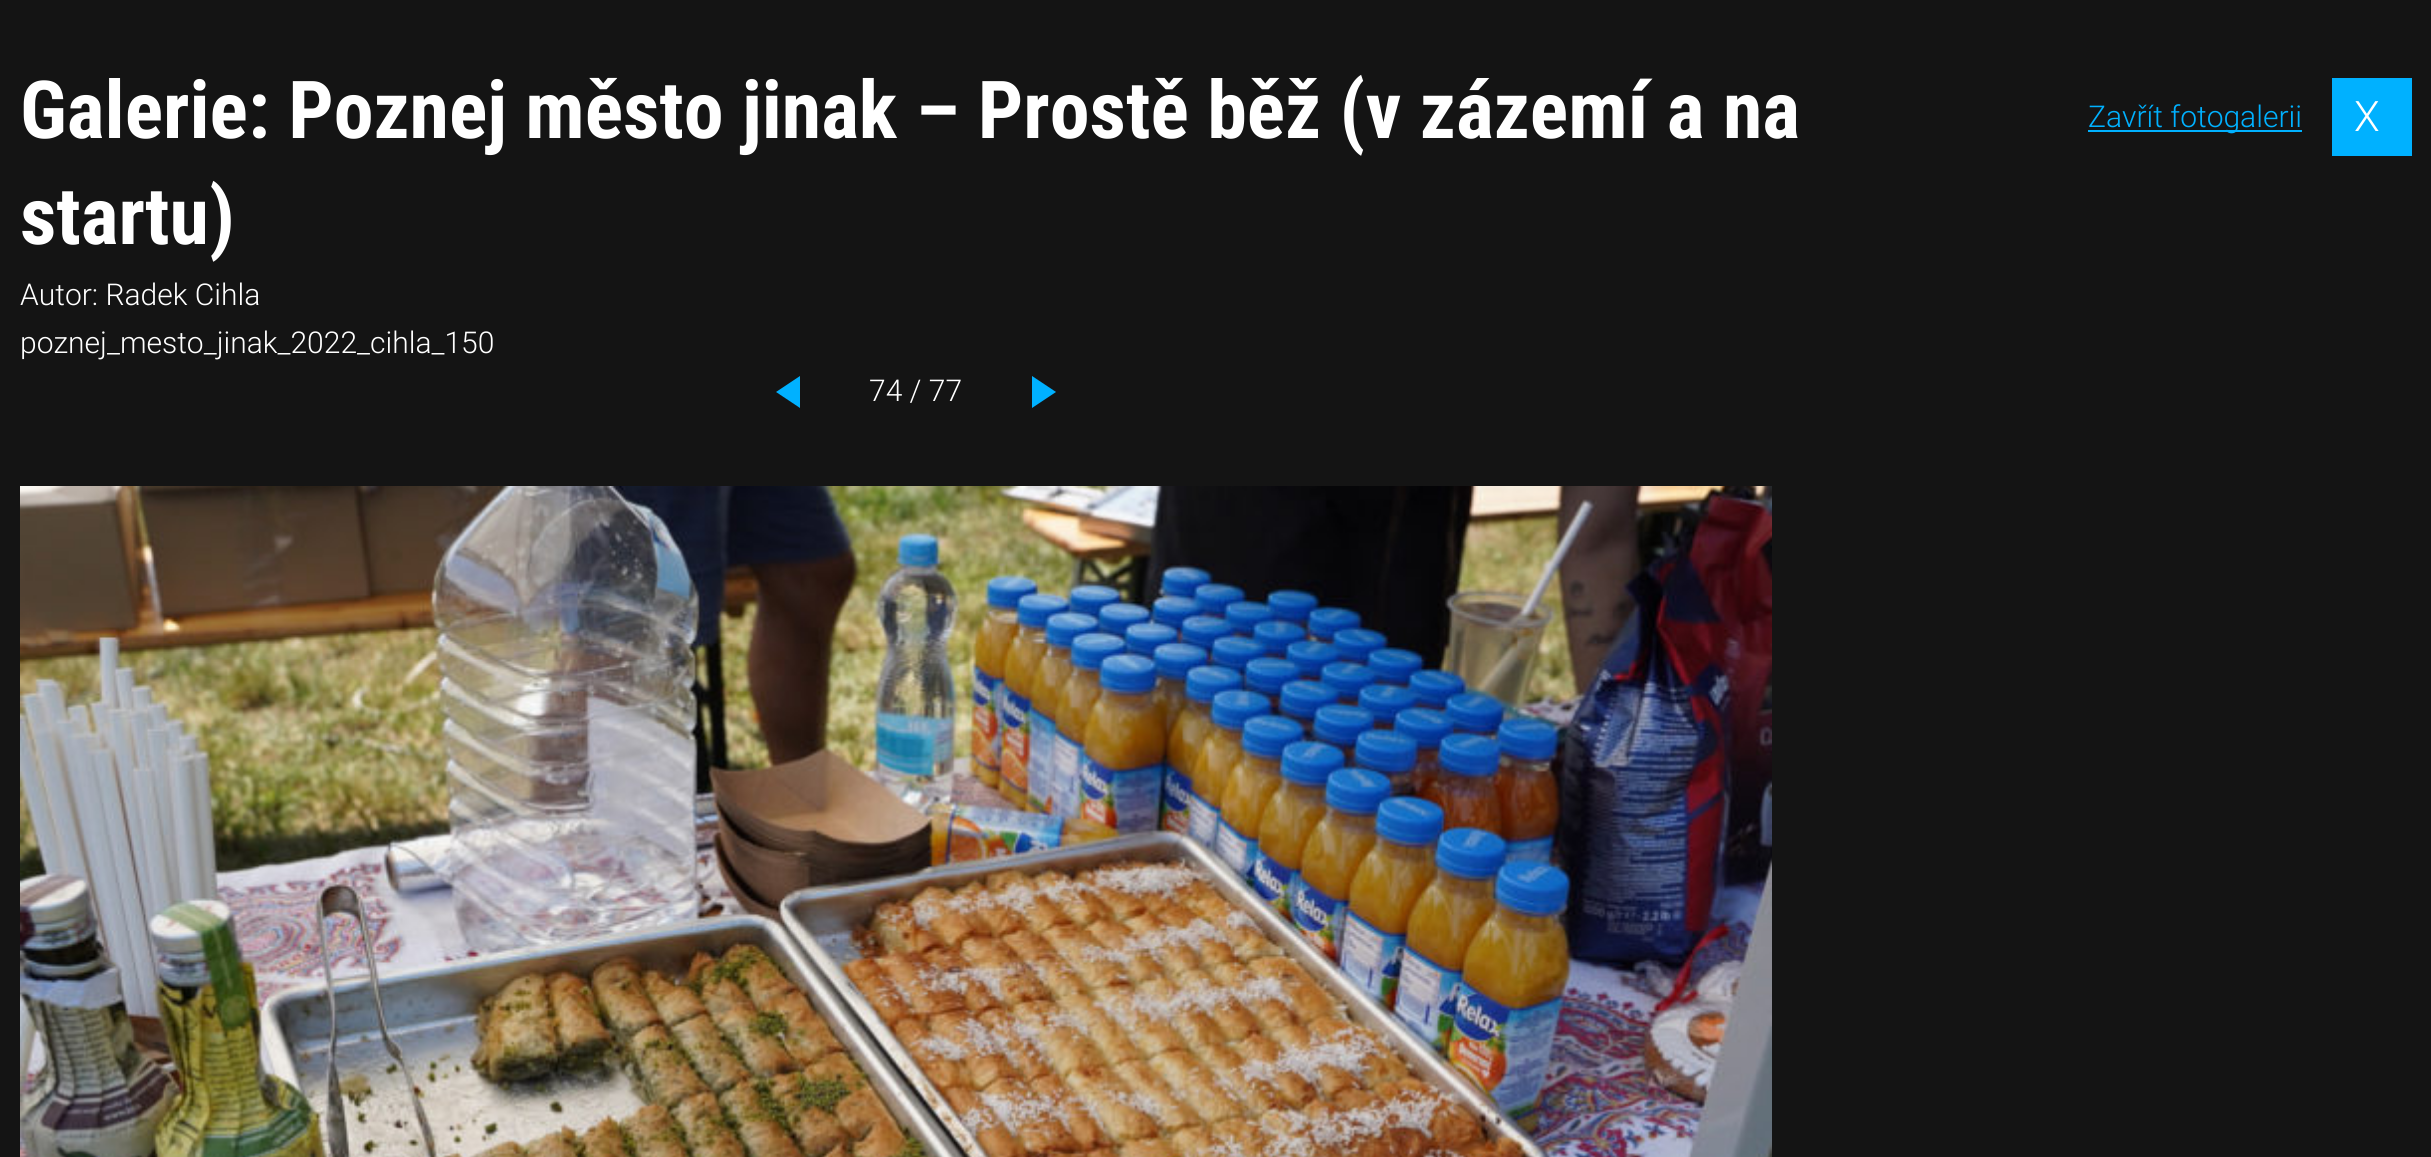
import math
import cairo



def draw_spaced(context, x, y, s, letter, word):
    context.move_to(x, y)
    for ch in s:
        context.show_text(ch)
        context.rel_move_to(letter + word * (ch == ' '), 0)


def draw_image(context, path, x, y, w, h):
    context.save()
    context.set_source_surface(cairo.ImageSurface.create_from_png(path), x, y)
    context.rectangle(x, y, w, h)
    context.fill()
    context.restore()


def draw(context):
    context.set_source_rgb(20 / 255, 20 / 255, 20 / 255)
    context.paint()
    context.set_source_rgb(0, 177 / 255, 1)
    context.new_path()
    context.move_to(800, 376)
    context.line_to(800, 408)
    context.line_to(776, 392)
    context.close_path()
    context.fill()
    context.new_path()
    context.move_to(1032, 408)
    context.line_to(1032, 376)
    context.line_to(1056, 392)
    context.close_path()
    context.fill()
    context.rectangle(2088, 130, 214, 2)
    context.fill()
    context.rectangle(2332, 78, 80, 78)
    context.fill()
    draw_image(context, "images/1.png", 20, 486, 1752, 671)
    context.select_font_face("Roboto Condensed", cairo.FontSlant.NORMAL, cairo.FontWeight.BOLD)
    context.set_font_size(80)
    context.set_source_rgb(1, 1, 1)
    context.move_to(20, 138)
    context.show_text("Galerie: Poznej město jinak – Prostě běž (v zázemí a na")
    context.move_to(20, 244)
    context.show_text("startu)")
    context.select_font_face("Roboto Light")
    context.set_font_size(30)
    context.move_to(20, 305)
    context.show_text("Autor: Radek Cihla")
    context.move_to(20, 353)
    context.show_text("poznej_mesto_jinak_2022_cihla_150")
    context.move_to(869, 401)
    context.show_text("74 / 77")
    context.set_source_rgb(0, 177 / 255, 1)
    context.move_to(2088, 127)
    context.show_text("Zavřít fotogalerii")
    context.set_font_size(42)
    context.set_source_rgb(1, 1, 1)
    draw_spaced(context, 2354, 131, "X", 11, 0)


surface = cairo.ImageSurface(cairo.Format.RGB24, 2431, 1157)
context = cairo.Context(surface)
options = cairo.FontOptions()
options.set_hint_metrics(cairo.HintMetrics.OFF)
options.set_hint_style(cairo.HintStyle.NONE)
context.set_font_options(options)
context.set_miter_limit(4)
draw(context)
surface.write_to_png("out.png")
